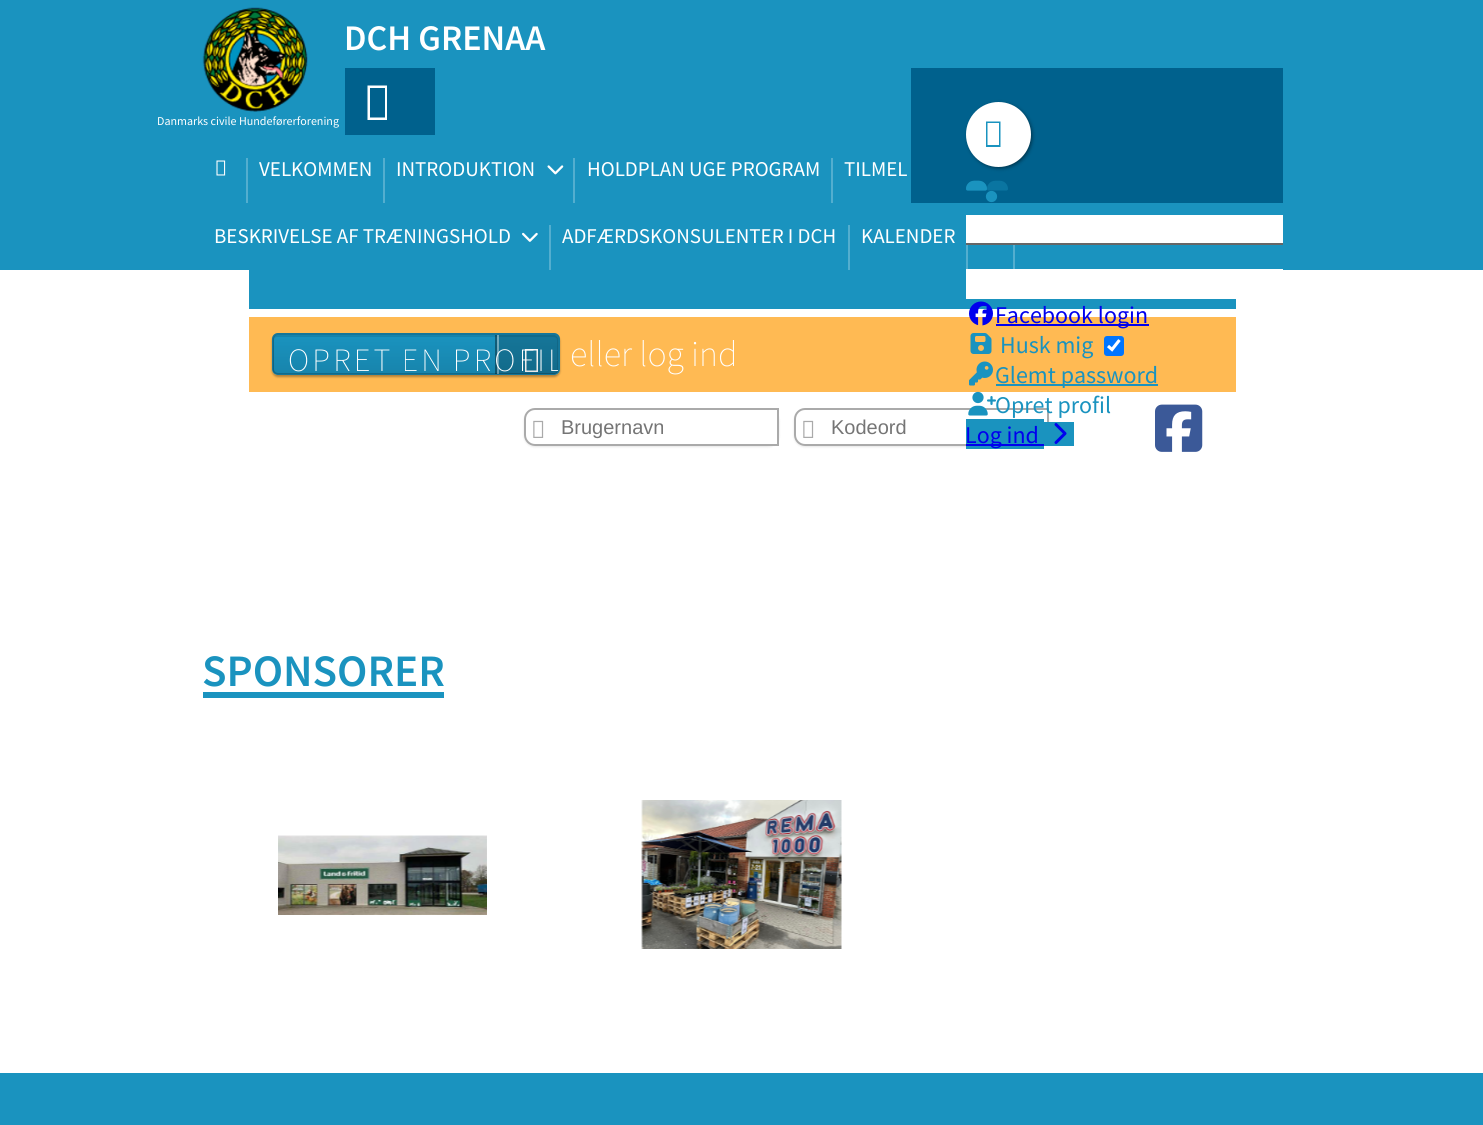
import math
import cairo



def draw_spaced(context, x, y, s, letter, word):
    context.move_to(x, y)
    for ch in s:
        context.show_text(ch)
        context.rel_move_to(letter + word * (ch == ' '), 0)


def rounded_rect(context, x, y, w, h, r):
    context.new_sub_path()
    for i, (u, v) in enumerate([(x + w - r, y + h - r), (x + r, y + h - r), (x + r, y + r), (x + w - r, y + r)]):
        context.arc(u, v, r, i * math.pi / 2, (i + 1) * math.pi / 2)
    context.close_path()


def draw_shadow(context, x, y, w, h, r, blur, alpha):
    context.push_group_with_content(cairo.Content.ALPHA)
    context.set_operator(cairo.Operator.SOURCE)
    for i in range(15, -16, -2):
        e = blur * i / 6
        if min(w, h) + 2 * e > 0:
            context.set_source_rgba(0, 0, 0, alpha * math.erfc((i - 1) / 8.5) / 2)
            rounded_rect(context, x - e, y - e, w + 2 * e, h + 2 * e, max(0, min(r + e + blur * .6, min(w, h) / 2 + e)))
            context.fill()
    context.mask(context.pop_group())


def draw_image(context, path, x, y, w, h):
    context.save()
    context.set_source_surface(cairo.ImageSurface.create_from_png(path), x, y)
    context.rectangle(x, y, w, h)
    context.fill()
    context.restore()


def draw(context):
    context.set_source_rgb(1, 1, 1)
    context.paint()
    context.set_source_rgb(26 / 255, 147 / 255, 191 / 255)
    context.rectangle(0, 0, 1483, 270)
    context.fill()
    draw_image(context, "images/1.png", 202, 7, 106, 105)
    context.set_source_rgb(0, 97 / 255, 141 / 255)
    context.rectangle(345, 68, 90, 67)
    context.fill()
    context.set_source_rgb(1, 1, 1)
    context.new_path()
    context.move_to(367.5, 120)
    context.line_to(367.5, 85.5)
    context.line_to(387, 85.5)
    context.line_to(387, 120)
    context.close_path()
    context.move_to(370, 117.5)
    context.line_to(385, 117.5)
    context.line_to(385, 88)
    context.line_to(370, 88)
    context.close_path()
    context.fill()
    draw_image(context, "images/2.png", 216, 160, 10, 16)
    context.set_source_rgb(83 / 255, 174 / 255, 207 / 255)
    context.rectangle(246, 158, 2, 45)
    context.fill()
    context.rectangle(383, 158, 2, 45)
    context.fill()
    draw_image(context, "images/3.png", 547, 165, 17, 10)
    context.rectangle(573, 158, 2, 45)
    context.fill()
    context.rectangle(831, 158, 2, 45)
    context.fill()
    draw_image(context, "images/4.png", 522, 232, 16, 10)
    context.rectangle(549, 225, 2, 45)
    context.fill()
    context.rectangle(848, 225, 2, 45)
    context.fill()
    context.rectangle(966, 245, 2, 25)
    context.fill()
    context.rectangle(1013, 245, 2, 25)
    context.fill()
    context.set_source_rgb(0, 97 / 255, 141 / 255)
    context.rectangle(911, 68, 372, 135)
    context.fill()
    context.set_source_rgb(0, 0, 0)
    draw_shadow(context, 968, 104, 64, 64, 32, 2, 0.5)
    context.set_source_rgb(1, 1, 1)
    context.arc(998.5, 134.5, 32.5, 0, 2 * math.pi)
    context.fill()
    context.set_source_rgb(26 / 255, 147 / 255, 191 / 255)
    context.new_path()
    context.move_to(986, 147)
    context.line_to(986, 121.5)
    context.line_to(1000.5, 121.5)
    context.line_to(1000.5, 147)
    context.close_path()
    context.move_to(987.5, 145)
    context.line_to(999, 145)
    context.line_to(999, 123)
    context.line_to(987.5, 123)
    context.close_path()
    context.fill()
    draw_image(context, "images/7.png", 985, 190, 13, 13)
    draw_image(context, "images/5.png", 966, 180, 21, 11)
    draw_image(context, "images/6.png", 966, 180, 42, 11)
    context.set_source_rgb(1, 1, 1)
    context.rectangle(966, 215, 317, 28)
    context.fill()
    context.set_source_rgb(102 / 255, 102 / 255, 102 / 255)
    context.rectangle(966, 243, 317, 2)
    context.fill()
    context.set_source_rgb(26 / 255, 147 / 255, 191 / 255)
    context.rectangle(249, 270, 987, 39)
    context.fill()
    context.set_source_rgb(1, 1, 1)
    context.rectangle(966, 269, 317, 30)
    context.fill()
    context.set_source_rgb(1, 186 / 255, 83 / 255)
    context.rectangle(249, 317, 987, 75)
    context.fill()
    draw_image(context, "images/8.png", 969, 301, 24, 25)
    context.set_source_rgb(0, 0, 238 / 255)
    context.rectangle(996, 324, 153, 2)
    context.fill()
    draw_image(context, "images/9.png", 970, 333, 22, 21)
    context.set_source_rgb(0, 117 / 255, 1)
    rounded_rect(context, 1104, 336, 20, 20, 3)
    context.fill()
    context.new_path()
    context.move_to(1108, 346)
    context.line_to(1112, 349.5)
    context.line_to(1119.5, 340)
    context.set_source_rgb(1, 1, 1)
    context.set_line_width(3.1)
    context.stroke()
    draw_image(context, "images/10.png", 969, 361, 24, 25)
    context.set_source_rgb(26 / 255, 147 / 255, 191 / 255)
    context.rectangle(996, 384, 162, 2)
    context.fill()
    context.save()
    context.set_fill_rule(cairo.FillRule.EVEN_ODD)
    context.new_path()
    context.move_to(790, 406)
    context.line_to(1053, 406)
    context.line_to(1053, 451)
    context.line_to(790, 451)
    context.close_path()
    context.move_to(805, 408)
    context.line_to(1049, 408)
    context.line_to(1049, 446)
    context.line_to(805, 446)
    context.curve_to(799, 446, 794, 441, 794, 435)
    context.line_to(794, 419)
    context.curve_to(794, 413, 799, 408, 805, 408)
    context.close_path()
    context.clip()
    context.set_source_rgb(0, 0, 0)
    draw_shadow(context, 794, 410, 255, 37, 11, 1, 0.1)
    context.restore()
    context.new_path()
    context.move_to(805, 409)
    context.line_to(1048, 409)
    context.line_to(1048, 445)
    context.line_to(805, 445)
    context.curve_to(799.5, 445, 795, 440.5, 795, 435)
    context.line_to(795, 419)
    context.curve_to(795, 413.5, 799.5, 409, 805, 409)
    context.close_path()
    context.set_source_rgb(170 / 255, 170 / 255, 170 / 255)
    context.set_line_width(2)
    context.stroke()
    draw_image(context, "images/11.png", 968, 391, 28, 25)
    context.set_source_rgb(26 / 255, 147 / 255, 191 / 255)
    context.rectangle(966, 419, 78, 30)
    context.fill()
    context.rectangle(1044, 422, 30, 24)
    context.fill()
    context.set_source_rgb(0, 0, 238 / 255)
    context.rectangle(966, 444, 78, 2)
    context.fill()
    draw_image(context, "images/12.png", 1054, 423, 13, 21)
    context.save()
    context.set_fill_rule(cairo.FillRule.EVEN_ODD)
    context.new_path()
    context.move_to(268, 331)
    context.line_to(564, 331)
    context.line_to(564, 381)
    context.line_to(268, 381)
    context.close_path()
    context.move_to(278, 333)
    context.line_to(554, 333)
    context.curve_to(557.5, 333, 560, 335.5, 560, 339)
    context.line_to(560, 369)
    context.curve_to(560, 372.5, 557.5, 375, 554, 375)
    context.line_to(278, 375)
    context.curve_to(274.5, 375, 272, 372.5, 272, 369)
    context.line_to(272, 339)
    context.curve_to(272, 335.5, 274.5, 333, 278, 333)
    context.close_path()
    context.clip()
    context.set_source_rgb(0, 0, 0)
    draw_shadow(context, 272, 335, 288, 42, 6, 1, 0.3)
    context.restore()
    context.set_source_rgb(26 / 255, 147 / 255, 191 / 255)
    rounded_rect(context, 272, 333, 288, 42, 6)
    context.fill()
    context.set_source_rgb(23 / 255, 132 / 255, 172 / 255)
    context.new_path()
    context.move_to(278, 337)
    context.line_to(553, 337)
    context.curve_to(556, 337, 557, 338, 557, 340)
    context.line_to(557, 371)
    context.curve_to(557, 373, 556, 374, 553, 374)
    context.line_to(554, 374)
    context.curve_to(556, 374, 558, 372, 558, 370)
    context.line_to(558, 339)
    context.curve_to(558, 337, 556, 335, 554, 335)
    context.line_to(277, 335)
    context.curve_to(275, 335, 273, 337, 273, 339)
    context.line_to(273, 370)
    context.curve_to(273, 372, 275, 374, 277, 374)
    context.line_to(278, 374)
    context.curve_to(275, 374, 274, 373, 274, 371)
    context.line_to(274, 340)
    context.curve_to(274, 338, 275, 337, 278, 337)
    context.close_path()
    context.fill()
    rounded_rect(context, 273, 334, 286, 40, 5)
    context.set_source_rgba(0, 0, 0, 0.2)
    context.stroke()
    context.new_path()
    context.move_to(495, 335)
    context.line_to(554, 335)
    context.curve_to(556, 335, 558, 337, 558, 339)
    context.line_to(558, 370)
    context.curve_to(558, 372, 556, 374, 554, 374)
    context.line_to(495, 374)
    context.close_path()
    context.fill()
    context.set_source_rgba(1, 1, 1, 0.4)
    context.rectangle(497, 335, 2, 39)
    context.fill()
    context.set_source_rgba(0, 0, 0, 0.2)
    context.rectangle(495, 335, 2, 39)
    context.fill()
    context.set_source_rgb(1, 1, 1)
    context.new_path()
    context.move_to(525, 372)
    context.line_to(525, 349)
    context.line_to(538, 349)
    context.line_to(538, 372)
    context.close_path()
    context.move_to(526.5, 370.5)
    context.line_to(536.5, 370.5)
    context.line_to(536.5, 350.5)
    context.line_to(526.5, 350.5)
    context.close_path()
    context.fill()
    gradient = cairo.LinearGradient(416, 335, 416, 374)
    gradient.add_color_stop_rgba(0, 0, 0, 0, 0)
    gradient.add_color_stop_rgba(1, 0, 0, 0, 0.1)
    context.set_source(gradient)
    rounded_rect(context, 273, 335, 285, 39, 4)
    context.fill()
    context.save()
    context.set_fill_rule(cairo.FillRule.EVEN_ODD)
    context.new_path()
    context.move_to(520, 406)
    context.line_to(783, 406)
    context.line_to(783, 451)
    context.line_to(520, 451)
    context.close_path()
    context.move_to(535, 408)
    context.line_to(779, 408)
    context.line_to(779, 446)
    context.line_to(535, 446)
    context.curve_to(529, 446, 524, 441, 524, 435)
    context.line_to(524, 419)
    context.curve_to(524, 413, 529, 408, 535, 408)
    context.close_path()
    context.clip()
    context.set_source_rgb(0, 0, 0)
    draw_shadow(context, 524, 410, 255, 37, 11, 1, 0.1)
    context.restore()
    context.new_path()
    context.move_to(535, 409)
    context.line_to(778, 409)
    context.line_to(778, 445)
    context.line_to(535, 445)
    context.curve_to(529.5, 445, 525, 440.5, 525, 435)
    context.line_to(525, 419)
    context.curve_to(525, 413.5, 529.5, 409, 535, 409)
    context.close_path()
    context.set_source_rgb(170 / 255, 170 / 255, 170 / 255)
    context.stroke()
    draw_image(context, "images/13.png", 533, 420, 11, 18)
    draw_image(context, "images/13.png", 803, 420, 11, 18)
    draw_image(context, "images/14.png", 1155, 404, 48, 48)
    context.set_source_rgb(26 / 255, 147 / 255, 191 / 255)
    context.rectangle(203, 692, 241, 6)
    context.fill()
    draw_image(context, "images/15.png", 278, 835, 209, 80)
    draw_image(context, "images/16.png", 641, 800, 201, 149)
    context.rectangle(0, 1073, 1483, 52)
    context.fill()
    context.select_font_face("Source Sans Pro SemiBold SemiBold")
    context.set_font_size(36)
    context.set_source_rgb(1, 1, 1)
    context.move_to(344, 50)
    context.show_text("DCH GRENAA")
    context.select_font_face("Source Sans Pro")
    context.set_font_size(12)
    context.move_to(157, 125)
    context.show_text("Danmarks civile Hundeførerforening")
    context.set_font_size(21)
    context.move_to(259, 176)
    context.show_text("VELKOMMEN")
    context.move_to(396, 176)
    context.show_text("INTRODUKTION")
    context.move_to(587, 176)
    context.show_text("HOLDPLAN UGE PROGRAM")
    context.move_to(844, 176)
    context.show_text("TILMEL")
    context.move_to(214, 243)
    context.show_text("BESKRIVELSE AF TRÆNINGSHOLD")
    context.move_to(562, 243)
    context.show_text("ADFÆRDSKONSULENTER I DCH")
    context.move_to(861, 243)
    context.show_text("KALENDER")
    context.set_font_size(24)
    context.set_source_rgb(0, 0, 238 / 255)
    context.move_to(995, 323)
    context.show_text("Facebook login")
    context.set_source_rgb(26 / 255, 147 / 255, 191 / 255)
    context.move_to(1000, 353)
    context.show_text("Husk mig")
    context.move_to(995, 383)
    context.show_text("Glemt password")
    context.move_to(995, 413)
    context.show_text("Opret profil")
    context.set_source_rgb(0, 0, 238 / 255)
    context.move_to(965, 443)
    context.show_text("Log ind")
    context.save()
    rounded_rect(context, 273, 335, 285, 39, 4)
    context.clip()
    context.select_font_face("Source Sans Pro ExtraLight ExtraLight")
    context.set_font_size(32.5)
    context.set_source_rgb(1, 1, 1)
    draw_spaced(context, 288, 371, "OPRET EN PROFIL", 3.25, -2)
    context.restore()
    context.select_font_face("Source Sans Pro ExtraLight ExtraLight")
    context.set_font_size(36)
    context.set_source_rgb(1, 1, 1)
    context.move_to(570, 366)
    context.show_text("eller log ind")
    context.select_font_face("Liberation Sans")
    context.set_font_size(20)
    context.set_source_rgb(117 / 255, 117 / 255, 117 / 255)
    context.move_to(561, 434)
    context.show_text("Brugernavn")
    context.move_to(831, 434)
    context.show_text("Kodeord")
    context.select_font_face("Source Sans Pro SemiBold SemiBold")
    context.set_font_size(45)
    context.set_source_rgb(26 / 255, 147 / 255, 191 / 255)
    context.move_to(202, 686)
    context.show_text("SPONSORER")


surface = cairo.ImageSurface(cairo.Format.RGB24, 1483, 1125)
context = cairo.Context(surface)
options = cairo.FontOptions()
options.set_hint_metrics(cairo.HintMetrics.OFF)
options.set_hint_style(cairo.HintStyle.NONE)
context.set_font_options(options)
context.set_miter_limit(4)
draw(context)
surface.write_to_png("out.png")
